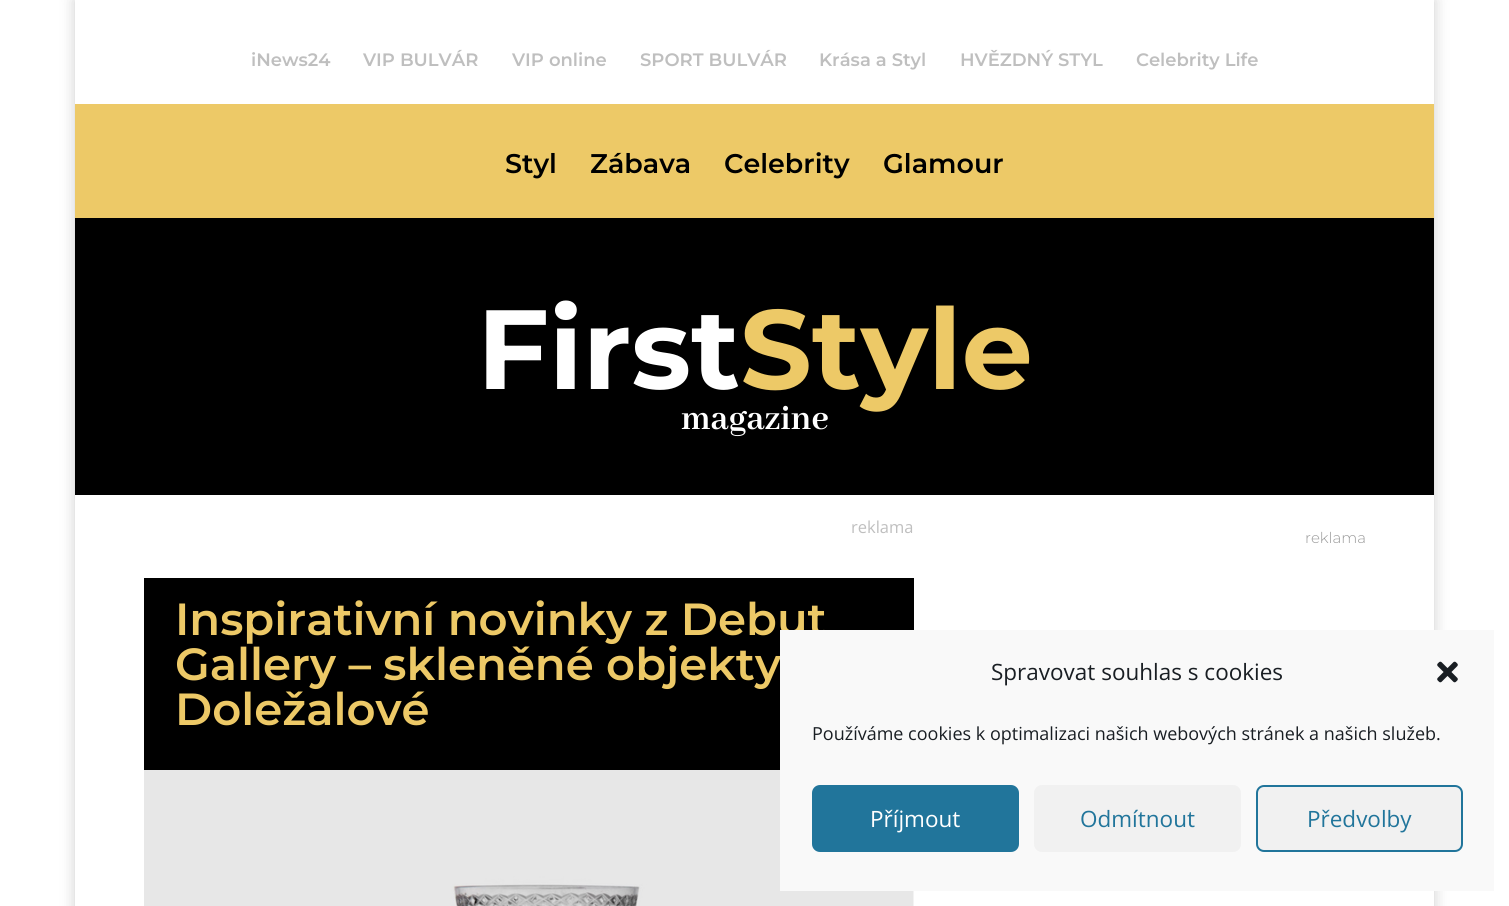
import math
import cairo



def rounded_rect(context, x, y, w, h, r):
    context.new_sub_path()
    for i, (u, v) in enumerate([(x + w - r, y + h - r), (x + r, y + h - r), (x + r, y + r), (x + w - r, y + r)]):
        context.arc(u, v, r, i * math.pi / 2, (i + 1) * math.pi / 2)
    context.close_path()


def draw_shadow(context, x, y, w, h, r, blur, alpha):
    context.push_group_with_content(cairo.Content.ALPHA)
    context.set_operator(cairo.Operator.SOURCE)
    for i in range(15, -16, -2):
        e = blur * i / 6
        if min(w, h) + 2 * e > 0:
            context.set_source_rgba(0, 0, 0, alpha * math.erfc((i - 1) / 8.5) / 2)
            rounded_rect(context, x - e, y - e, w + 2 * e, h + 2 * e, max(0, min(r + e + blur * .6, min(w, h) / 2 + e)))
            context.fill()
    context.mask(context.pop_group())


def draw_image(context, path, x, y, w, h):
    context.save()
    context.set_source_surface(cairo.ImageSurface.create_from_png(path), x, y)
    context.rectangle(x, y, w, h)
    context.fill()
    context.restore()


def draw(context):
    context.set_source_rgb(1, 1, 1)
    context.paint()
    context.save()
    context.set_fill_rule(cairo.FillRule.EVEN_ODD)
    context.new_path()
    context.move_to(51, 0)
    context.line_to(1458, 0)
    context.line_to(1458, 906)
    context.line_to(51, 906)
    context.close_path()
    context.move_to(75, 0)
    context.line_to(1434, 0)
    context.line_to(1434, 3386)
    context.line_to(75, 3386)
    context.close_path()
    context.clip()
    context.set_source_rgb(0, 0, 0)
    draw_shadow(context, 75, 0, 1359, 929, 0, 7.5, 0.2)
    context.restore()
    context.set_source_rgb(237 / 255, 201 / 255, 103 / 255)
    context.rectangle(75, 104, 1359, 114)
    context.fill()
    context.set_source_rgb(0, 0, 0)
    context.rectangle(75, 218, 1359, 277)
    context.fill()
    context.rectangle(144, 578, 770, 192)
    context.fill()
    draw_image(context, "images/1.png", 144, 770, 770, 136)
    context.select_font_face("Montserrat Thin")
    context.set_font_size(18)
    context.set_source_rgb(191 / 255, 191 / 255, 191 / 255)
    context.move_to(251, 66)
    context.show_text("iNews24")
    context.move_to(363, 66)
    context.show_text("VIP BULVÁR")
    context.move_to(512, 66)
    context.show_text("VIP online")
    context.move_to(640, 66)
    context.show_text("SPORT BULVÁR")
    context.move_to(819, 66)
    context.show_text("Krása a Styl")
    context.move_to(960, 66)
    context.show_text("HVĚZDNÝ STYL")
    context.move_to(1136, 66)
    context.show_text("Celebrity Life")
    context.set_font_size(27)
    context.set_source_rgb(0, 0, 0)
    context.move_to(505, 173)
    context.show_text("Styl")
    context.move_to(590, 173)
    context.show_text("Zábava")
    context.move_to(724, 173)
    context.show_text("Celebrity")
    context.move_to(883, 173)
    context.show_text("Glamour")
    context.select_font_face("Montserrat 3 Thin")
    context.set_font_size(112.5)
    context.set_source_rgb(1, 1, 1)
    context.move_to(477, 389)
    context.show_text("First")
    context.set_source_rgb(237 / 255, 201 / 255, 103 / 255)
    context.move_to(740, 389)
    context.show_text("Style")
    context.select_font_face("Abhaya Libre", cairo.FontSlant.NORMAL, cairo.FontWeight.BOLD)
    context.set_font_size(37.5)
    context.set_source_rgb(1, 1, 1)
    context.move_to(681, 429)
    context.show_text("magazine")
    context.select_font_face("Open Sans")
    context.set_font_size(16.5)
    context.set_source_rgb(191 / 255, 191 / 255, 191 / 255)
    context.move_to(851, 533)
    context.show_text("reklama")
    context.select_font_face("Montserrat Thin")
    context.set_font_size(45)
    context.set_source_rgb(237 / 255, 201 / 255, 103 / 255)
    context.move_to(175, 635)
    context.show_text("Inspirativní novinky z Debut")
    context.move_to(175, 680)
    context.show_text("Gallery – skleněné objekty")
    context.move_to(175, 725)
    context.show_text("Doležalové")
    context.select_font_face("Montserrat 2 Thin")
    context.set_font_size(15)
    context.set_source_rgb(153 / 255, 153 / 255, 153 / 255)
    context.move_to(1305, 543)
    context.show_text("reklama")
    context.set_source_rgb(249 / 255, 249 / 255, 249 / 255)
    context.rectangle(780, 630, 714, 261)
    context.fill()
    context.select_font_face("Open Sans")
    context.set_font_size(22.5)
    context.set_source_rgb(25 / 255, 30 / 255, 35 / 255)
    context.move_to(991, 680)
    context.show_text("Spravovat souhlas s cookies")
    draw_image(context, "images/2.png", 1437, 661, 21, 22)
    context.set_font_size(18)
    context.move_to(812, 740)
    context.show_text("Používáme cookies k optimalizaci našich webových stránek a našich služeb.")
    context.set_source_rgb(33 / 255, 117 / 255, 155 / 255)
    rounded_rect(context, 813, 786, 205, 65, 7)
    context.fill_preserve()
    context.stroke()
    context.set_font_size(22.5)
    context.set_source_rgb(1, 1, 1)
    context.move_to(870, 827)
    context.show_text("Příjmout")
    context.set_source_rgb(241 / 255, 241 / 255, 241 / 255)
    rounded_rect(context, 1034, 785, 207, 67, 8)
    context.fill()
    context.set_source_rgb(33 / 255, 117 / 255, 155 / 255)
    context.move_to(1080, 827)
    context.show_text("Odmítnout")
    context.set_source_rgb(241 / 255, 241 / 255, 241 / 255)
    rounded_rect(context, 1257, 786, 205, 65, 7)
    context.fill_preserve()
    context.set_source_rgb(33 / 255, 117 / 255, 155 / 255)
    context.stroke()
    context.move_to(1307, 827)
    context.show_text("Předvolby")


surface = cairo.ImageSurface(cairo.Format.RGB24, 1509, 906)
context = cairo.Context(surface)
options = cairo.FontOptions()
options.set_hint_metrics(cairo.HintMetrics.OFF)
options.set_hint_style(cairo.HintStyle.NONE)
context.set_font_options(options)
context.set_miter_limit(4)
draw(context)
surface.write_to_png("out.png")
